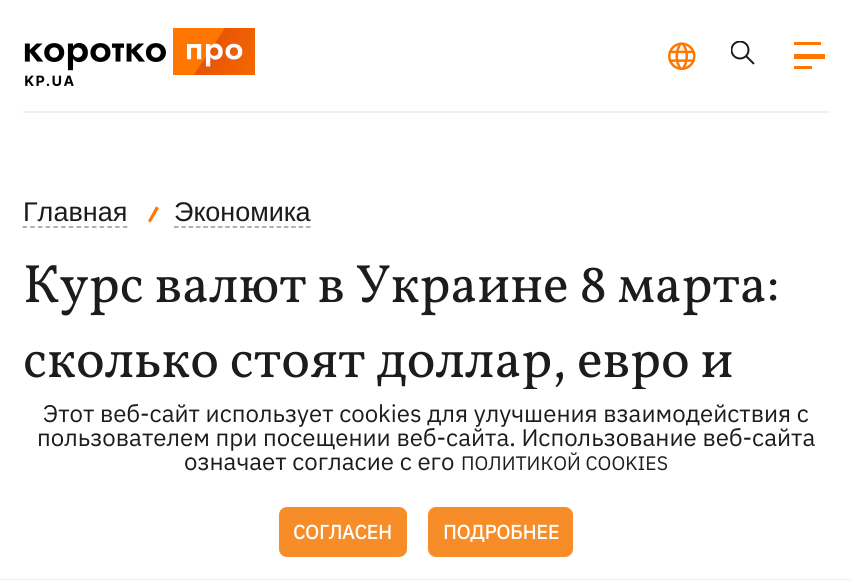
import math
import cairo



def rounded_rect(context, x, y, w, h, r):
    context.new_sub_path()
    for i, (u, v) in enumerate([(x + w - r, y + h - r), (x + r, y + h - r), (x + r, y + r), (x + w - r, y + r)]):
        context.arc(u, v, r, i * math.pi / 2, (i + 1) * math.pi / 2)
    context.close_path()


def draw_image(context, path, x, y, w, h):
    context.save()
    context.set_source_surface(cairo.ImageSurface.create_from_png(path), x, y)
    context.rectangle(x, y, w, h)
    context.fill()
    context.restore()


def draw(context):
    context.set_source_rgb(1, 1, 1)
    context.paint()
    context.set_source_rgb(240 / 255, 241 / 255, 242 / 255)
    context.rectangle(23, 111, 807, 2)
    context.fill()
    draw_image(context, "images/1.png", 24, 28, 231, 59)
    draw_image(context, "images/2.png", 668, 42, 28, 28)
    draw_image(context, "images/3.png", 731, 41, 24, 24)
    context.set_source_rgb(1, 119 / 255, 0)
    context.rectangle(794, 42, 27, 3)
    context.fill()
    context.rectangle(794, 54, 31, 5)
    context.fill()
    context.rectangle(794, 66, 18, 3)
    context.fill()
    context.new_path()
    context.move_to(22.5, 227)
    context.line_to(127.5, 227)
    context.set_source_rgb(150 / 255, 151 / 255, 155 / 255)
    context.set_line_width(1.5)
    context.set_dash([4.5, 3.22])
    context.stroke()
    context.set_source_rgb(1, 119 / 255, 0)
    context.new_path()
    context.move_to(148, 221)
    context.line_to(156, 206.5)
    context.line_to(159, 208)
    context.line_to(150.5, 222.5)
    context.close_path()
    context.fill()
    context.new_path()
    context.move_to(174, 227)
    context.line_to(310.5, 227)
    context.set_source_rgb(150 / 255, 151 / 255, 155 / 255)
    context.set_dash([4.5, 2.83])
    context.stroke()
    context.select_font_face("Liberation Sans")
    context.set_font_size(27)
    context.set_source_rgb(27 / 255, 28 / 255, 28 / 255)
    context.move_to(23, 221)
    context.show_text("Главная")
    context.move_to(174, 221)
    context.show_text("Экономика")
    context.select_font_face("Vollkorn")
    context.set_font_size(54)
    context.move_to(23, 302)
    context.show_text("Курс валют в Украине 8 марта:")
    context.move_to(23, 377)
    context.show_text("сколько стоят доллар, евро и")
    context.set_source_rgb(1, 1, 1)
    rounded_rect(context, 0, 389, 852, 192, 8)
    context.fill()
    context.set_source_rgb(236 / 255, 238 / 255, 239 / 255)
    context.rectangle(0, 579, 851, 1)
    context.fill()
    context.select_font_face("IBM Plex Sans")
    context.set_font_size(24)
    context.set_source_rgb(27 / 255, 28 / 255, 28 / 255)
    context.move_to(43, 422)
    context.show_text("Этот веб-сайт использует cookies для улучшения взаимодействия с")
    context.move_to(37, 446)
    context.show_text("пользователем при посещении веб-сайта. Использование веб-сайта")
    context.move_to(184, 470)
    context.show_text("означает согласие с его")
    context.set_font_size(19.5)
    context.move_to(461, 470)
    context.show_text("ПОЛИТИКОЙ COOKIES")
    context.set_source_rgb(246 / 255, 141 / 255, 41 / 255)
    rounded_rect(context, 280.5, 508.5, 125, 47, 6.5)
    context.fill_preserve()
    context.set_line_width(3)
    context.set_dash([])
    context.stroke()
    context.select_font_face("IBM Plex Sans", cairo.FontSlant.NORMAL, cairo.FontWeight.BOLD)
    context.set_source_rgb(1, 1, 1)
    context.move_to(293, 539)
    context.show_text("СОГЛАСЕН")
    context.set_source_rgb(246 / 255, 141 / 255, 41 / 255)
    rounded_rect(context, 429.5, 508.5, 142, 47, 6.5)
    context.fill_preserve()
    context.stroke()
    context.set_source_rgb(1, 1, 1)
    context.move_to(443, 539)
    context.show_text("ПОДРОБНЕЕ")


surface = cairo.ImageSurface(cairo.Format.RGB24, 851, 580)
context = cairo.Context(surface)
options = cairo.FontOptions()
options.set_hint_metrics(cairo.HintMetrics.OFF)
options.set_hint_style(cairo.HintStyle.NONE)
context.set_font_options(options)
context.set_miter_limit(4)
draw(context)
surface.write_to_png("out.png")
